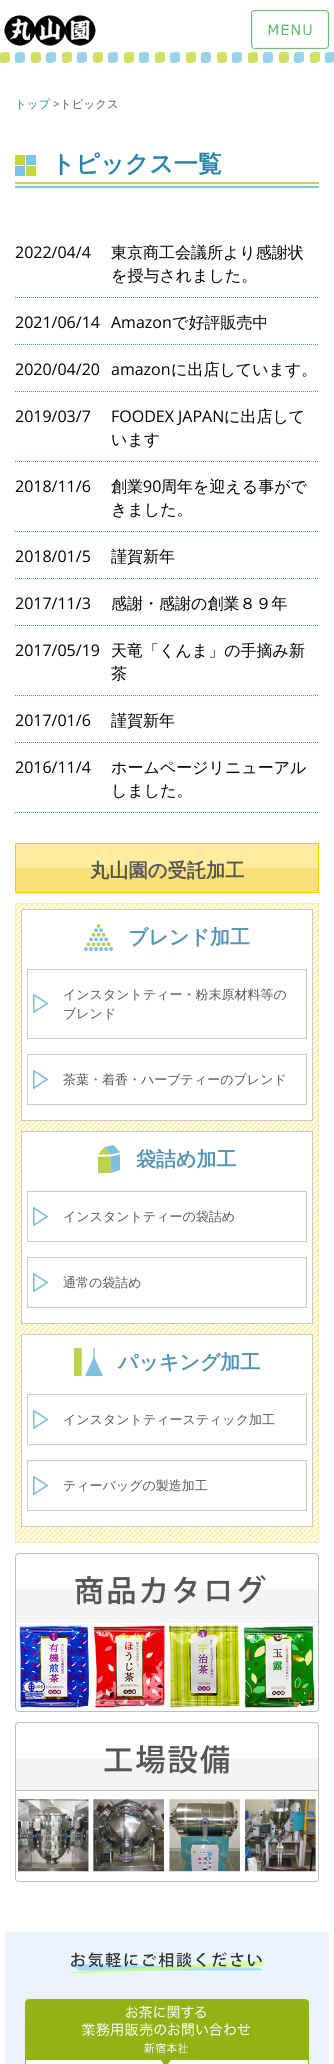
import math
import cairo



def rounded_rect(context, x, y, w, h, r):
    context.new_sub_path()
    for i, (u, v) in enumerate([(x + w - r, y + h - r), (x + r, y + h - r), (x + r, y + r), (x + w - r, y + r)]):
        context.arc(u, v, r, i * math.pi / 2, (i + 1) * math.pi / 2)
    context.close_path()


def draw_image(context, path, x, y, w, h):
    context.save()
    context.set_source_surface(cairo.ImageSurface.create_from_png(path), x, y)
    context.rectangle(x, y, w, h)
    context.fill()
    context.restore()


def draw(context):
    context.set_source_rgb(1, 1, 1)
    context.paint()
    draw_image(context, "images/1.png", 4, 15, 92, 31)
    draw_image(context, "images/2.png", 251, 10, 78, 39)
    draw_image(context, "images/3.png", 0, 52, 334, 11)
    draw_image(context, "images/4.png", 15, 182, 304, 6)
    draw_image(context, "images/5.png", 15, 155, 21, 21)
    context.new_path()
    context.move_to(15, 297.5)
    context.line_to(319, 297.5)
    context.set_source_rgb(82 / 255, 148 / 255, 182 / 255)
    context.set_line_width(1)
    context.set_dash([1, 1])
    context.stroke()
    context.new_path()
    context.move_to(15, 344.5)
    context.line_to(319, 344.5)
    context.stroke()
    context.new_path()
    context.move_to(15, 391.5)
    context.line_to(319, 391.5)
    context.stroke()
    context.new_path()
    context.move_to(15, 461.5)
    context.line_to(319, 461.5)
    context.stroke()
    context.new_path()
    context.move_to(15, 531.5)
    context.line_to(319, 531.5)
    context.stroke()
    context.new_path()
    context.move_to(15, 578.5)
    context.line_to(319, 578.5)
    context.stroke()
    context.new_path()
    context.move_to(15, 625.5)
    context.line_to(319, 625.5)
    context.stroke()
    context.new_path()
    context.move_to(15, 695.5)
    context.line_to(319, 695.5)
    context.stroke()
    context.new_path()
    context.move_to(15, 742.5)
    context.line_to(319, 742.5)
    context.stroke()
    context.new_path()
    context.move_to(15, 812.5)
    context.line_to(319, 812.5)
    context.stroke()
    draw_image(context, "images/6.png", 16, 844, 302, 48)
    context.rectangle(15.5, 843.5, 303, 49)
    context.set_source_rgb(1, 204 / 255, 0)
    context.set_dash([])
    context.stroke()
    draw_image(context, "images/7.png", 16, 904, 302, 638)
    context.rectangle(15.5, 903.5, 303, 639)
    context.set_source_rgb(1, 236 / 255, 160 / 255)
    context.stroke()
    context.set_source_rgb(1, 1, 1)
    context.rectangle(21.5, 909.5, 291, 211)
    context.fill_preserve()
    context.set_source_rgb(201 / 255, 201 / 255, 201 / 255)
    context.stroke()
    draw_image(context, "images/8.png", 84, 924, 29, 27)
    draw_image(context, "images/9.png", 33, 994, 15, 19)
    context.rectangle(27.5, 969.5, 279, 69)
    context.stroke()
    draw_image(context, "images/9.png", 33, 1070, 15, 19)
    context.rectangle(27.5, 1054.5, 279, 50)
    context.stroke()
    context.set_source_rgb(1, 1, 1)
    context.rectangle(21.5, 1131.5, 291, 192)
    context.fill_preserve()
    context.set_source_rgb(201 / 255, 201 / 255, 201 / 255)
    context.stroke()
    draw_image(context, "images/10.png", 98, 1145, 22, 28)
    draw_image(context, "images/9.png", 33, 1207, 15, 19)
    context.rectangle(27.5, 1191.5, 279, 50)
    context.stroke()
    draw_image(context, "images/9.png", 33, 1273, 15, 19)
    context.rectangle(27.5, 1257.5, 279, 50)
    context.stroke()
    context.set_source_rgb(1, 1, 1)
    context.rectangle(21.5, 1334.5, 291, 192)
    context.fill_preserve()
    context.set_source_rgb(201 / 255, 201 / 255, 201 / 255)
    context.stroke()
    draw_image(context, "images/11.png", 74, 1348, 29, 28)
    draw_image(context, "images/9.png", 33, 1410, 15, 19)
    context.rectangle(27.5, 1394.5, 279, 50)
    context.stroke()
    draw_image(context, "images/9.png", 33, 1476, 15, 19)
    context.rectangle(27.5, 1460.5, 279, 50)
    context.stroke()
    rounded_rect(context, 15.5, 1553.5, 303, 158, 3.5)
    context.set_source_rgb(191 / 255, 191 / 255, 191 / 255)
    context.stroke()
    draw_image(context, "images/12.png", 16, 1575, 302, 133)
    rounded_rect(context, 15.5, 1722.5, 303, 159, 3.5)
    context.stroke()
    draw_image(context, "images/13.png", 16, 1745, 302, 127)
    context.set_source_rgb(233 / 255, 244 / 255, 1)
    context.rectangle(5, 1932, 324, 132)
    context.fill()
    draw_image(context, "images/14.png", 70, 1952, 194, 22)
    rounded_rect(context, 25.5, 1999.5, 283, 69, 3.5)
    context.set_source_rgb(147 / 255, 178 / 255, 19 / 255)
    context.stroke()
    draw_image(context, "images/15.png", 26, 2000, 282, 64)
    context.select_font_face("WenQuanYi Zen Hei Medium")
    context.set_font_size(11.5)
    context.set_source_rgb(39 / 255, 130 / 255, 170 / 255)
    context.move_to(15, 108)
    context.show_text("トップ")
    context.select_font_face("Open Sans")
    context.set_source_rgb(85 / 255, 85 / 255, 85 / 255)
    context.move_to(53, 108)
    context.show_text(">")
    context.select_font_face("WenQuanYi Zen Hei Medium")
    context.move_to(60, 108)
    context.show_text("トピックス")
    context.select_font_face("WenQuanYi Zen Hei", cairo.FontSlant.NORMAL, cairo.FontWeight.BOLD)
    context.set_font_size(24)
    context.set_source_rgb(39 / 255, 130 / 255, 170 / 255)
    context.move_to(51, 172)
    context.show_text("トピックス一覧")
    context.select_font_face("Open Sans")
    context.set_font_size(16)
    context.set_source_rgb(0, 0, 0)
    context.move_to(15, 258)
    context.show_text("2022/04/4")
    context.select_font_face("WenQuanYi Zen Hei Medium")
    context.move_to(111, 258)
    context.show_text("東京商工会議所より感謝状")
    context.move_to(111, 281)
    context.show_text("を授与されました。")
    context.select_font_face("Open Sans")
    context.move_to(15, 328)
    context.show_text("2021/06/14")
    context.move_to(111, 328)
    context.show_text("Amazon")
    context.select_font_face("WenQuanYi Zen Hei Medium")
    context.move_to(172, 328)
    context.show_text("で好評販売中")
    context.select_font_face("Open Sans")
    context.move_to(15, 375)
    context.show_text("2020/04/20")
    context.move_to(111, 375)
    context.show_text("amazon")
    context.select_font_face("WenQuanYi Zen Hei Medium")
    context.move_to(171, 375)
    context.show_text("に出店しています。")
    context.select_font_face("Open Sans")
    context.move_to(15, 422)
    context.show_text("2019/03/7")
    context.move_to(111, 422)
    context.show_text("FOODEX JAPAN")
    context.select_font_face("WenQuanYi Zen Hei Medium")
    context.move_to(224, 422)
    context.show_text("に出店して")
    context.move_to(111, 445)
    context.show_text("います")
    context.select_font_face("Open Sans")
    context.move_to(15, 492)
    context.show_text("2018/11/6")
    context.select_font_face("WenQuanYi Zen Hei Medium")
    context.move_to(111, 492)
    context.show_text("創業")
    context.select_font_face("Open Sans")
    context.move_to(143, 492)
    context.show_text("90")
    context.select_font_face("WenQuanYi Zen Hei Medium")
    context.move_to(161, 492)
    context.show_text("周年を迎える事がで")
    context.move_to(111, 515)
    context.show_text("きました。")
    context.select_font_face("Open Sans")
    context.move_to(15, 562)
    context.show_text("2018/01/5")
    context.select_font_face("WenQuanYi Zen Hei Medium")
    context.move_to(111, 562)
    context.show_text("謹賀新年")
    context.select_font_face("Open Sans")
    context.move_to(15, 609)
    context.show_text("2017/11/3")
    context.select_font_face("WenQuanYi Zen Hei Medium")
    context.move_to(111, 609)
    context.show_text("感謝・感謝の創業８９年")
    context.select_font_face("Open Sans")
    context.move_to(15, 656)
    context.show_text("2017/05/19")
    context.select_font_face("WenQuanYi Zen Hei Medium")
    context.move_to(111, 656)
    context.show_text("天竜「くんま」の手摘み新")
    context.move_to(111, 679)
    context.show_text("茶")
    context.select_font_face("Open Sans")
    context.move_to(15, 726)
    context.show_text("2017/01/6")
    context.select_font_face("WenQuanYi Zen Hei Medium")
    context.move_to(111, 726)
    context.show_text("謹賀新年")
    context.select_font_face("Open Sans")
    context.move_to(15, 773)
    context.show_text("2016/11/4")
    context.select_font_face("WenQuanYi Zen Hei Medium")
    context.move_to(111, 773)
    context.show_text("ホームページリニューアル")
    context.move_to(111, 796)
    context.show_text("しました。")
    context.select_font_face("WenQuanYi Zen Hei", cairo.FontSlant.NORMAL, cairo.FontWeight.BOLD)
    context.set_font_size(19.25)
    context.set_source_rgb(85 / 255, 85 / 255, 85 / 255)
    context.move_to(90, 877)
    context.show_text("丸山園の受託加工")
    context.set_font_size(20)
    context.set_source_rgb(82 / 255, 148 / 255, 182 / 255)
    context.move_to(128, 944)
    context.show_text("ブレンド加工")
    context.select_font_face("WenQuanYi Zen Hei Medium")
    context.set_font_size(13)
    context.set_source_rgb(85 / 255, 85 / 255, 85 / 255)
    context.move_to(63, 999)
    context.show_text("インスタントティー・粉末原材料等の")
    context.move_to(63, 1018)
    context.show_text("ブレンド")
    context.move_to(63, 1084)
    context.show_text("茶葉・着香・ハーブティーのブレンド")
    context.select_font_face("WenQuanYi Zen Hei", cairo.FontSlant.NORMAL, cairo.FontWeight.BOLD)
    context.set_font_size(20)
    context.set_source_rgb(82 / 255, 148 / 255, 182 / 255)
    context.move_to(136, 1166)
    context.show_text("袋詰め加工")
    context.select_font_face("WenQuanYi Zen Hei Medium")
    context.set_font_size(13)
    context.set_source_rgb(85 / 255, 85 / 255, 85 / 255)
    context.move_to(63, 1221)
    context.show_text("インスタントティーの袋詰め")
    context.move_to(63, 1287)
    context.show_text("通常の袋詰め")
    context.select_font_face("WenQuanYi Zen Hei", cairo.FontSlant.NORMAL, cairo.FontWeight.BOLD)
    context.set_font_size(20)
    context.set_source_rgb(82 / 255, 148 / 255, 182 / 255)
    context.move_to(118, 1369)
    context.show_text("パッキング加工")
    context.select_font_face("WenQuanYi Zen Hei Medium")
    context.set_font_size(13)
    context.set_source_rgb(85 / 255, 85 / 255, 85 / 255)
    context.move_to(63, 1424)
    context.show_text("インスタントティースティック加工")
    context.move_to(63, 1490)
    context.show_text("ティーバッグの製造加工")


surface = cairo.ImageSurface(cairo.Format.RGB24, 334, 2064)
context = cairo.Context(surface)
options = cairo.FontOptions()
options.set_hint_metrics(cairo.HintMetrics.OFF)
options.set_hint_style(cairo.HintStyle.NONE)
context.set_font_options(options)
context.set_miter_limit(4)
draw(context)
surface.write_to_png("out.png")
